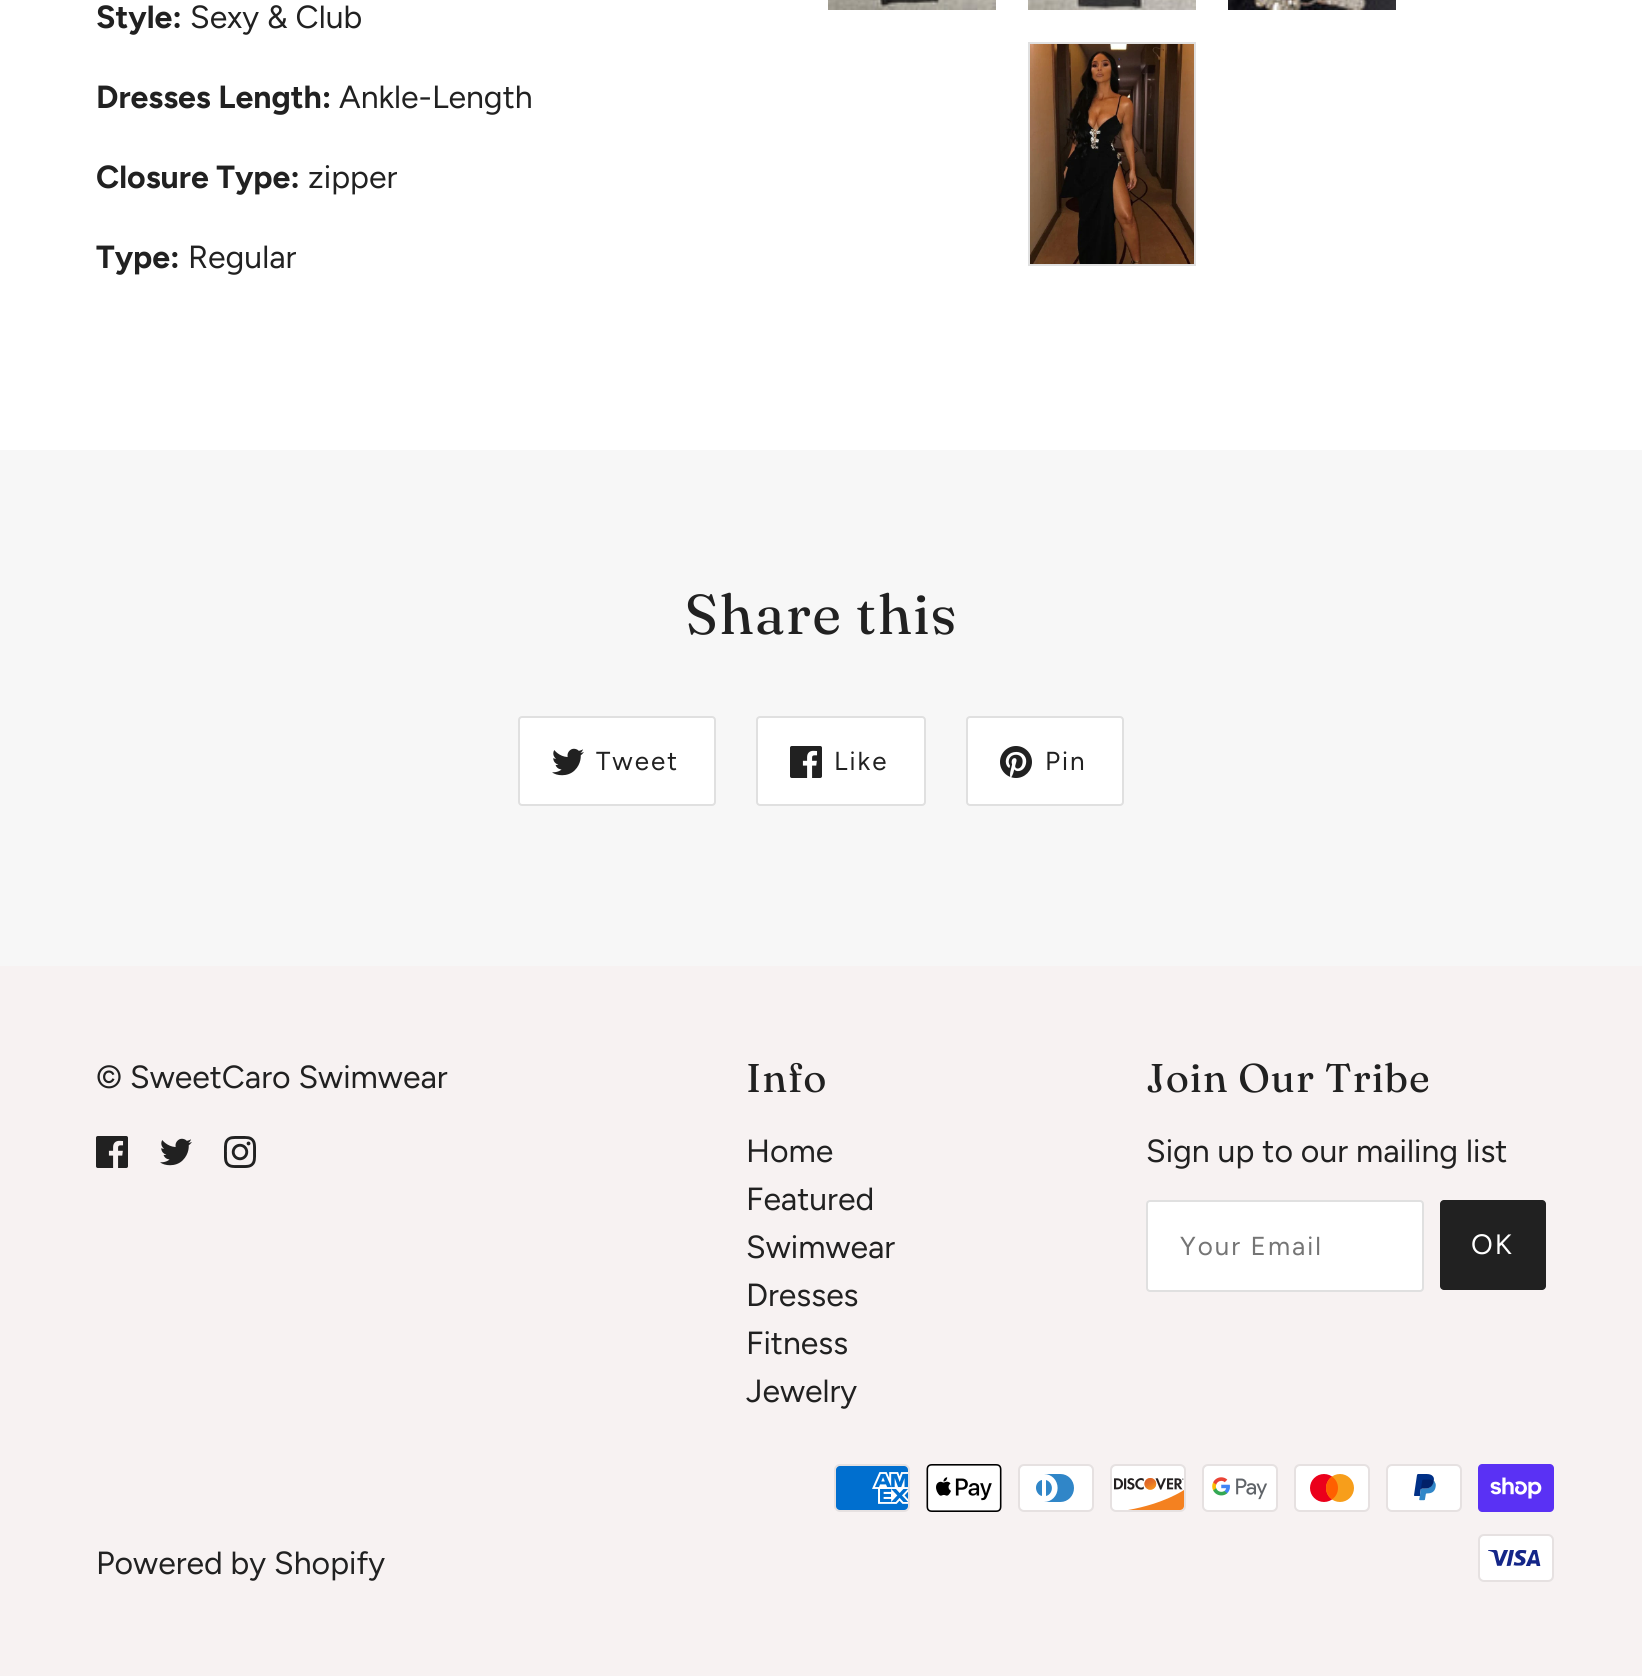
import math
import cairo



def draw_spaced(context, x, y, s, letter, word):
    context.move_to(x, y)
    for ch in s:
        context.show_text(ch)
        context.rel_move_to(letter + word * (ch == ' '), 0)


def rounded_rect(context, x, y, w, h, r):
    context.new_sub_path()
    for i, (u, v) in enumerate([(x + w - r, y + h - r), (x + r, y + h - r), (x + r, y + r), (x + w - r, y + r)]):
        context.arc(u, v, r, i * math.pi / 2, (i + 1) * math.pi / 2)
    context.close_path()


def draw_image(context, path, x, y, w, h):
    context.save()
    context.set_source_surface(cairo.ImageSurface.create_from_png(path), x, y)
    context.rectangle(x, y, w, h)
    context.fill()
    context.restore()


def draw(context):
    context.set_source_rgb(1, 1, 1)
    context.paint()
    draw_image(context, "images/1.png", 828, 0, 168, 10)
    draw_image(context, "images/2.png", 1028, 0, 168, 10)
    draw_image(context, "images/3.png", 1228, 0, 168, 10)
    context.rectangle(1029, 43, 166, 222)
    context.set_source_rgb(224 / 255, 224 / 255, 224 / 255)
    context.stroke()
    draw_image(context, "images/4.png", 1030, 44, 164, 220)
    context.set_source_rgb(247 / 255, 247 / 255, 247 / 255)
    context.rectangle(0, 450, 1642, 516)
    context.fill()
    context.set_source_rgb(1, 1, 1)
    rounded_rect(context, 519, 717, 196, 88, 3)
    context.fill_preserve()
    context.set_source_rgb(224 / 255, 224 / 255, 224 / 255)
    context.stroke()
    draw_image(context, "images/5.png", 552, 748, 32, 28)
    context.set_source_rgb(1, 1, 1)
    rounded_rect(context, 757, 717, 168, 88, 3)
    context.fill_preserve()
    context.set_source_rgb(224 / 255, 224 / 255, 224 / 255)
    context.stroke()
    draw_image(context, "images/6.png", 790, 746, 32, 32)
    context.set_source_rgb(1, 1, 1)
    rounded_rect(context, 967, 717, 156, 88, 3)
    context.fill_preserve()
    context.set_source_rgb(224 / 255, 224 / 255, 224 / 255)
    context.stroke()
    draw_image(context, "images/7.png", 1000, 746, 32, 32)
    context.set_source_rgb(247 / 255, 242 / 255, 242 / 255)
    context.rectangle(0, 966, 1642, 710)
    context.fill()
    draw_image(context, "images/8.png", 96, 1136, 32, 32)
    draw_image(context, "images/9.png", 160, 1138, 32, 28)
    draw_image(context, "images/10.png", 224, 1136, 32, 32)
    context.set_source_rgb(1, 1, 1)
    rounded_rect(context, 1147, 1201, 276, 90, 3)
    context.fill_preserve()
    context.set_source_rgb(224 / 255, 224 / 255, 224 / 255)
    context.stroke()
    context.set_source_rgb(33 / 255, 33 / 255, 33 / 255)
    rounded_rect(context, 1440, 1200, 106, 90, 4)
    context.fill()
    draw_image(context, "images/11.png", 834, 1464, 76, 48)
    draw_image(context, "images/12.png", 926, 1464, 76, 48)
    draw_image(context, "images/13.png", 1018, 1464, 76, 48)
    draw_image(context, "images/14.png", 1110, 1464, 76, 48)
    draw_image(context, "images/15.png", 1202, 1464, 76, 48)
    draw_image(context, "images/16.png", 1294, 1464, 76, 48)
    draw_image(context, "images/17.png", 1386, 1464, 76, 48)
    draw_image(context, "images/18.png", 1478, 1464, 76, 48)
    draw_image(context, "images/19.png", 1478, 1534, 76, 48)
    context.select_font_face("Figtree", cairo.FontSlant.NORMAL, cairo.FontWeight.BOLD)
    context.set_font_size(32)
    context.move_to(96, 28)
    context.show_text("Style:")
    context.select_font_face("Figtree")
    context.move_to(190, 28)
    context.show_text("Sexy & Club")
    context.select_font_face("Figtree", cairo.FontSlant.NORMAL, cairo.FontWeight.BOLD)
    context.move_to(96, 108)
    context.show_text("Dresses Length:")
    context.select_font_face("Figtree")
    context.move_to(339, 108)
    context.show_text("Ankle-Length")
    context.select_font_face("Figtree", cairo.FontSlant.NORMAL, cairo.FontWeight.BOLD)
    context.move_to(96, 188)
    context.show_text("Closure Type:")
    context.select_font_face("Figtree")
    context.move_to(308, 188)
    context.show_text("zipper")
    context.select_font_face("Figtree", cairo.FontSlant.NORMAL, cairo.FontWeight.BOLD)
    context.move_to(96, 268)
    context.show_text("Type:")
    context.select_font_face("Figtree")
    context.move_to(188, 268)
    context.show_text("Regular")
    context.select_font_face("Fraunces")
    context.set_font_size(56)
    draw_spaced(context, 685, 634, "Share this", 1.4, 0)
    context.select_font_face("Figtree")
    context.set_font_size(26)
    draw_spaced(context, 596, 770, "Tweet", 2, 0)
    draw_spaced(context, 834, 770, "Like", 2, 0)
    draw_spaced(context, 1045, 770, "Pin", 2, 0)
    context.set_font_size(32)
    context.move_to(96, 1088)
    context.show_text("© SweetCaro Swimwear")
    context.select_font_face("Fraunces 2")
    context.set_font_size(40)
    draw_spaced(context, 746, 1092, "Info", 1, 0)
    context.select_font_face("Figtree")
    context.set_font_size(32)
    context.move_to(746, 1162)
    context.show_text("Home")
    context.move_to(746, 1210)
    context.show_text("Featured")
    context.move_to(746, 1258)
    context.show_text("Swimwear")
    context.move_to(746, 1306)
    context.show_text("Dresses")
    context.move_to(746, 1354)
    context.show_text("Fitness")
    context.move_to(746, 1402)
    context.show_text("Jewelry")
    context.select_font_face("Fraunces 2")
    context.set_font_size(40)
    draw_spaced(context, 1146, 1092, "Join Our Tribe", 1, 0)
    context.select_font_face("Figtree")
    context.set_font_size(32)
    context.move_to(1146, 1162)
    context.show_text("Sign up to our mailing list")
    context.set_font_size(26)
    context.set_source_rgb(117 / 255, 117 / 255, 117 / 255)
    draw_spaced(context, 1180, 1255, "Your Email", 2, 0)
    context.set_font_size(28)
    context.set_source_rgb(1, 1, 1)
    draw_spaced(context, 1471, 1254, "OK", 2, 0)
    context.set_font_size(32)
    context.set_source_rgb(33 / 255, 33 / 255, 33 / 255)
    context.move_to(96, 1574)
    context.show_text("Powered by Shopify")


surface = cairo.ImageSurface(cairo.Format.RGB24, 1642, 1676)
context = cairo.Context(surface)
options = cairo.FontOptions()
options.set_hint_metrics(cairo.HintMetrics.OFF)
options.set_hint_style(cairo.HintStyle.NONE)
context.set_font_options(options)
context.set_miter_limit(4)
draw(context)
surface.write_to_png("out.png")
